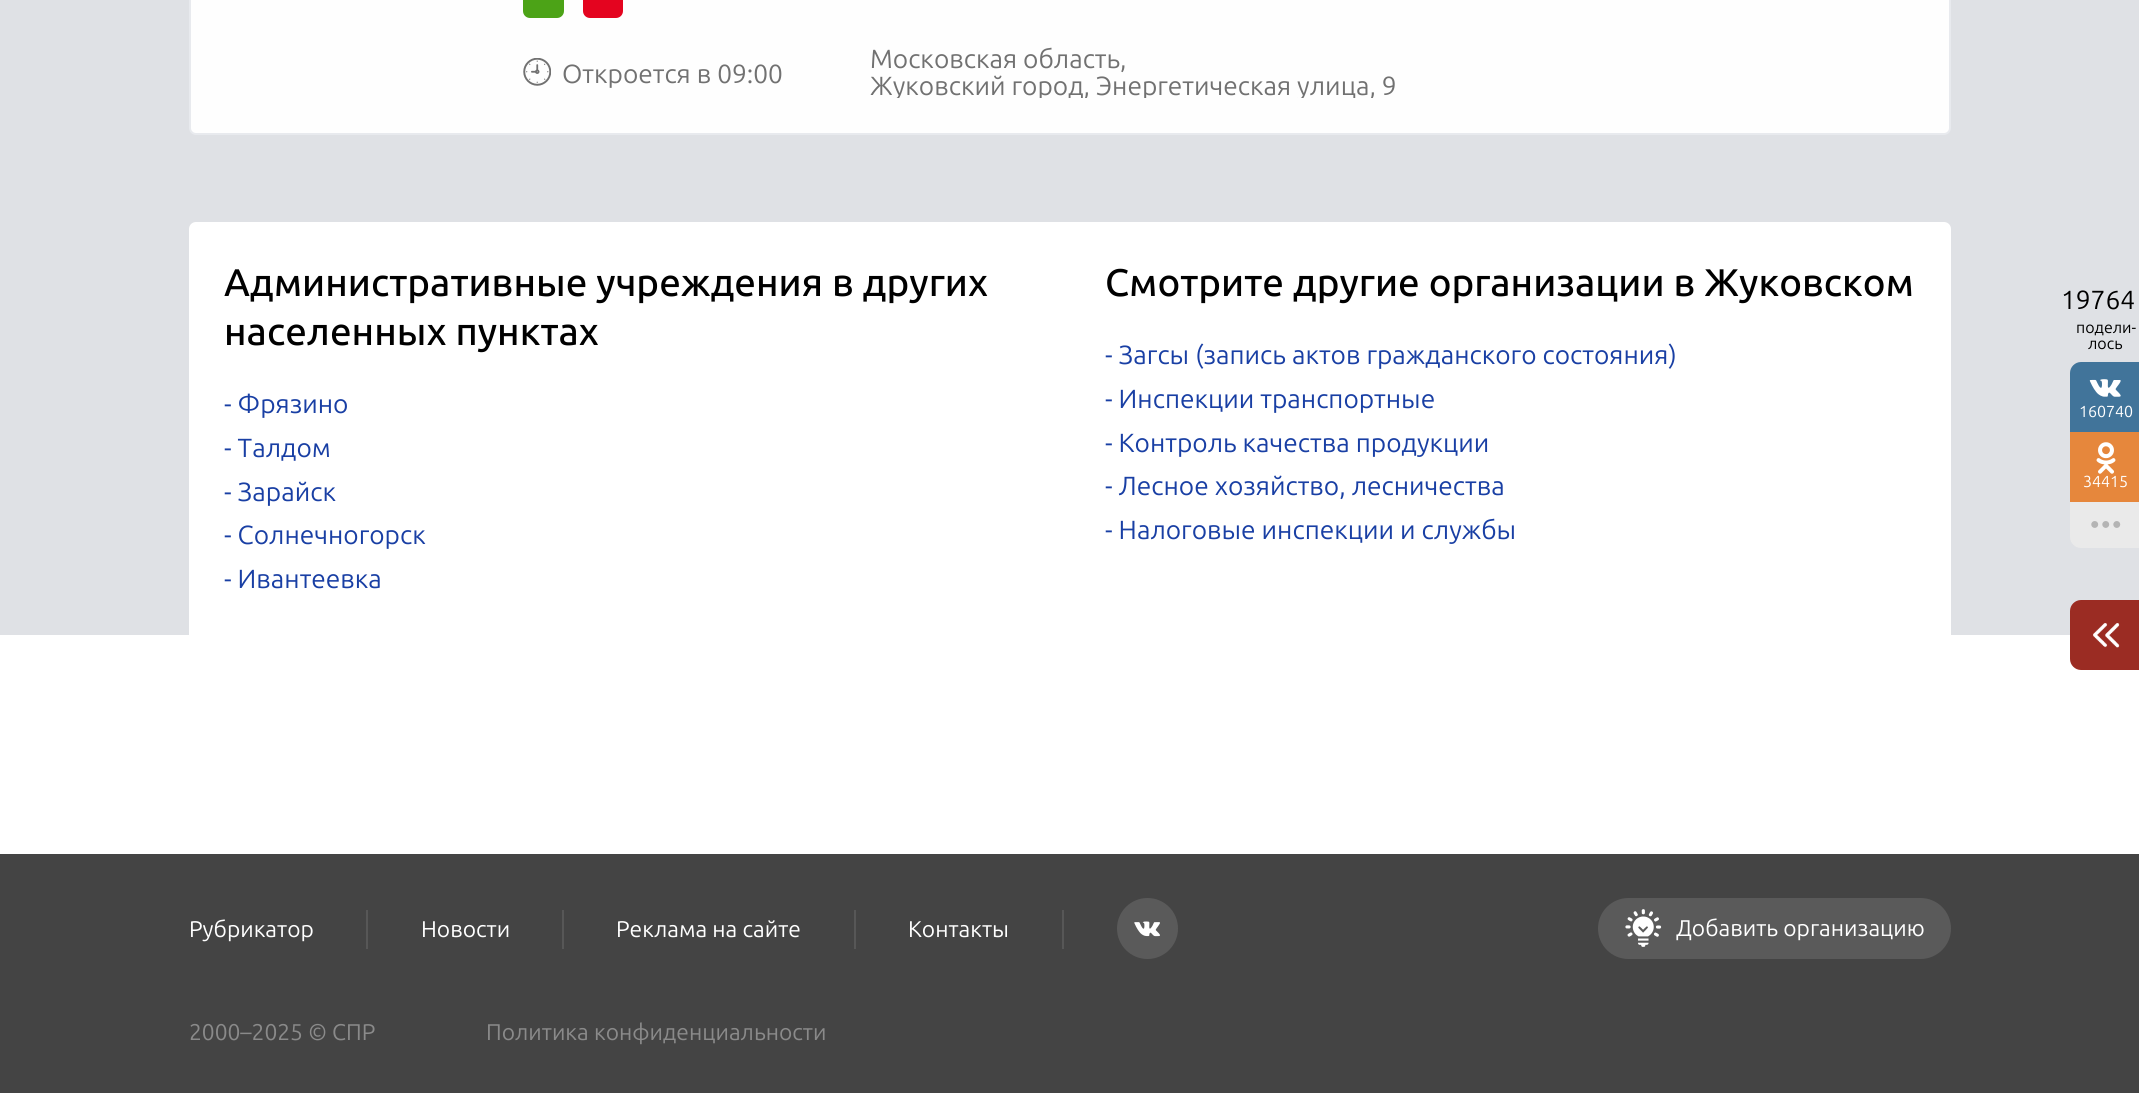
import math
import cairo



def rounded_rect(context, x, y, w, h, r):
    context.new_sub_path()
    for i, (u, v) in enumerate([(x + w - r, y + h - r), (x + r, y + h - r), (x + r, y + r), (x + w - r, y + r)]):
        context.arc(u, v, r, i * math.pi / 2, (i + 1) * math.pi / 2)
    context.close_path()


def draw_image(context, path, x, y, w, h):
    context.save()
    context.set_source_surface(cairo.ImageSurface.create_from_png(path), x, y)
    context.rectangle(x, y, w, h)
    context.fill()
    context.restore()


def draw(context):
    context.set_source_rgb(1, 1, 1)
    context.paint()
    context.set_source_rgb(223 / 255, 225 / 255, 229 / 255)
    context.rectangle(0, 0, 2139, 635)
    context.fill()
    context.set_source_rgb(254 / 255, 254 / 255, 254 / 255)
    rounded_rect(context, 190, -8, 1760, 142, 6)
    context.fill_preserve()
    context.set_source_rgb(232 / 255, 234 / 255, 238 / 255)
    context.stroke()
    context.set_source_rgb(76 / 255, 163 / 255, 23 / 255)
    rounded_rect(context, 523, -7, 41, 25, 7)
    context.fill()
    context.set_source_rgb(228 / 255, 4 / 255, 31 / 255)
    rounded_rect(context, 583, -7, 40, 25, 7)
    context.fill()
    draw_image(context, "images/1.png", 523, 58, 28, 28)
    context.set_source_rgb(1, 1, 1)
    rounded_rect(context, 189, 222, 1762, 422, 7)
    context.fill()
    context.set_source_rgb(65 / 255, 116 / 255, 154 / 255)
    context.new_path()
    context.move_to(2081, 362)
    context.line_to(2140, 362)
    context.line_to(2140, 432)
    context.line_to(2070, 432)
    context.line_to(2070, 373)
    context.curve_to(2070, 367, 2075, 362, 2081, 362)
    context.close_path()
    context.fill()
    draw_image(context, "images/2.png", 2089, 379, 32, 18)
    context.set_source_rgb(230 / 255, 135 / 255, 60 / 255)
    context.rectangle(2070, 432, 69, 70)
    context.fill()
    draw_image(context, "images/3.png", 2096, 442, 20, 32)
    context.set_source_rgb(234 / 255, 234 / 255, 234 / 255)
    context.new_path()
    context.move_to(2070, 502)
    context.line_to(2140, 502)
    context.line_to(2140, 548)
    context.line_to(2081, 548)
    context.curve_to(2075, 548, 2070, 543, 2070, 537)
    context.close_path()
    context.fill()
    draw_image(context, "images/4.png", 2091, 521, 30, 7)
    context.set_source_rgb(155 / 255, 44 / 255, 35 / 255)
    context.new_path()
    context.move_to(2081, 600)
    context.line_to(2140, 600)
    context.line_to(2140, 670)
    context.line_to(2081, 670)
    context.curve_to(2075, 670, 2070, 665, 2070, 659)
    context.line_to(2070, 611)
    context.curve_to(2070, 605, 2075, 600, 2081, 600)
    context.close_path()
    context.fill()
    draw_image(context, "images/5.png", 2093, 623, 27, 25)
    context.set_source_rgb(68 / 255, 68 / 255, 68 / 255)
    context.rectangle(0, 854, 2139, 239)
    context.fill()
    context.set_source_rgb(87 / 255, 87 / 255, 87 / 255)
    context.rectangle(366, 910, 2, 39)
    context.fill()
    context.rectangle(562, 910, 2, 39)
    context.fill()
    context.rectangle(854, 910, 2, 39)
    context.fill()
    context.rectangle(1062, 910, 2, 39)
    context.fill()
    context.set_source_rgb(90 / 255, 90 / 255, 90 / 255)
    context.arc(1147.5, 928.5, 30.5, 0, 2 * math.pi)
    context.fill()
    draw_image(context, "images/6.png", 1134, 921, 26, 16)
    rounded_rect(context, 1598, 898, 353, 61, 30.5)
    context.fill()
    draw_image(context, "images/7.png", 1625, 909, 37, 38)
    context.select_font_face("Ubuntu")
    context.set_font_size(26.25)
    context.set_source_rgb(113 / 255, 113 / 255, 113 / 255)
    context.move_to(562, 83)
    context.show_text("Откроется в 09:00")
    context.move_to(870, 68)
    context.show_text("Московская область,")
    context.save()
    context.rectangle(870, 46, 527, 52)
    context.clip()
    context.move_to(870, 95)
    context.show_text("Жуковский город, Энергетическая улица, 9")
    context.restore()
    context.select_font_face("Ubuntu Medium")
    context.set_font_size(38.5)
    context.set_source_rgb(0, 0, 0)
    context.move_to(224, 296)
    context.show_text("Административные учреждения в других")
    context.move_to(224, 345)
    context.show_text("населенных пунктах")
    context.select_font_face("Ubuntu")
    context.set_font_size(26.25)
    context.set_source_rgb(25 / 255, 63 / 255, 164 / 255)
    context.move_to(224, 413)
    context.show_text("- Фрязино")
    context.move_to(224, 457)
    context.show_text("- Талдом")
    context.move_to(224, 501)
    context.show_text("- Зарайск")
    context.move_to(224, 544)
    context.show_text("- Солнечногорск")
    context.move_to(224, 588)
    context.show_text("- Ивантеевка")
    context.select_font_face("Ubuntu Medium")
    context.set_font_size(38.5)
    context.set_source_rgb(0, 0, 0)
    context.move_to(1105, 296)
    context.show_text("Смотрите другие организации в Жуковском")
    context.select_font_face("Ubuntu")
    context.set_font_size(26.25)
    context.set_source_rgb(25 / 255, 63 / 255, 164 / 255)
    context.move_to(1105, 364)
    context.show_text("- Загсы (запись актов гражданского состояния)")
    context.move_to(1105, 408)
    context.show_text("- Инспекции транспортные")
    context.move_to(1105, 452)
    context.show_text("- Контроль качества продукции")
    context.move_to(1105, 495)
    context.show_text("- Лесное хозяйство, лесничества")
    context.move_to(1105, 539)
    context.show_text("- Налоговые инспекции и службы")
    context.set_source_rgb(0, 0, 0)
    context.move_to(2061, 309)
    context.show_text("19764")
    context.set_font_size(16)
    context.move_to(2076, 333)
    context.show_text("подели-")
    context.move_to(2088, 349)
    context.show_text("лось")
    context.set_source_rgb(1, 1, 1)
    context.move_to(2079, 417)
    context.show_text("160740")
    context.move_to(2083, 487)
    context.show_text("34415")
    context.set_font_size(22.75)
    context.move_to(189, 937)
    context.show_text("Рубрикатор")
    context.move_to(421, 937)
    context.show_text("Новости")
    context.move_to(616, 937)
    context.show_text("Реклама на сайте")
    context.move_to(908, 937)
    context.show_text("Контакты")
    context.move_to(1676, 936)
    context.show_text("Добавить организацию")
    context.set_source_rgb(138 / 255, 138 / 255, 138 / 255)
    context.move_to(189, 1040)
    context.show_text("2000–2025 © СПР")
    context.move_to(486, 1040)
    context.show_text("Политика конфиденциальности")


surface = cairo.ImageSurface(cairo.Format.RGB24, 2139, 1093)
context = cairo.Context(surface)
options = cairo.FontOptions()
options.set_hint_metrics(cairo.HintMetrics.OFF)
options.set_hint_style(cairo.HintStyle.NONE)
context.set_font_options(options)
context.set_miter_limit(4)
draw(context)
surface.write_to_png("out.png")
